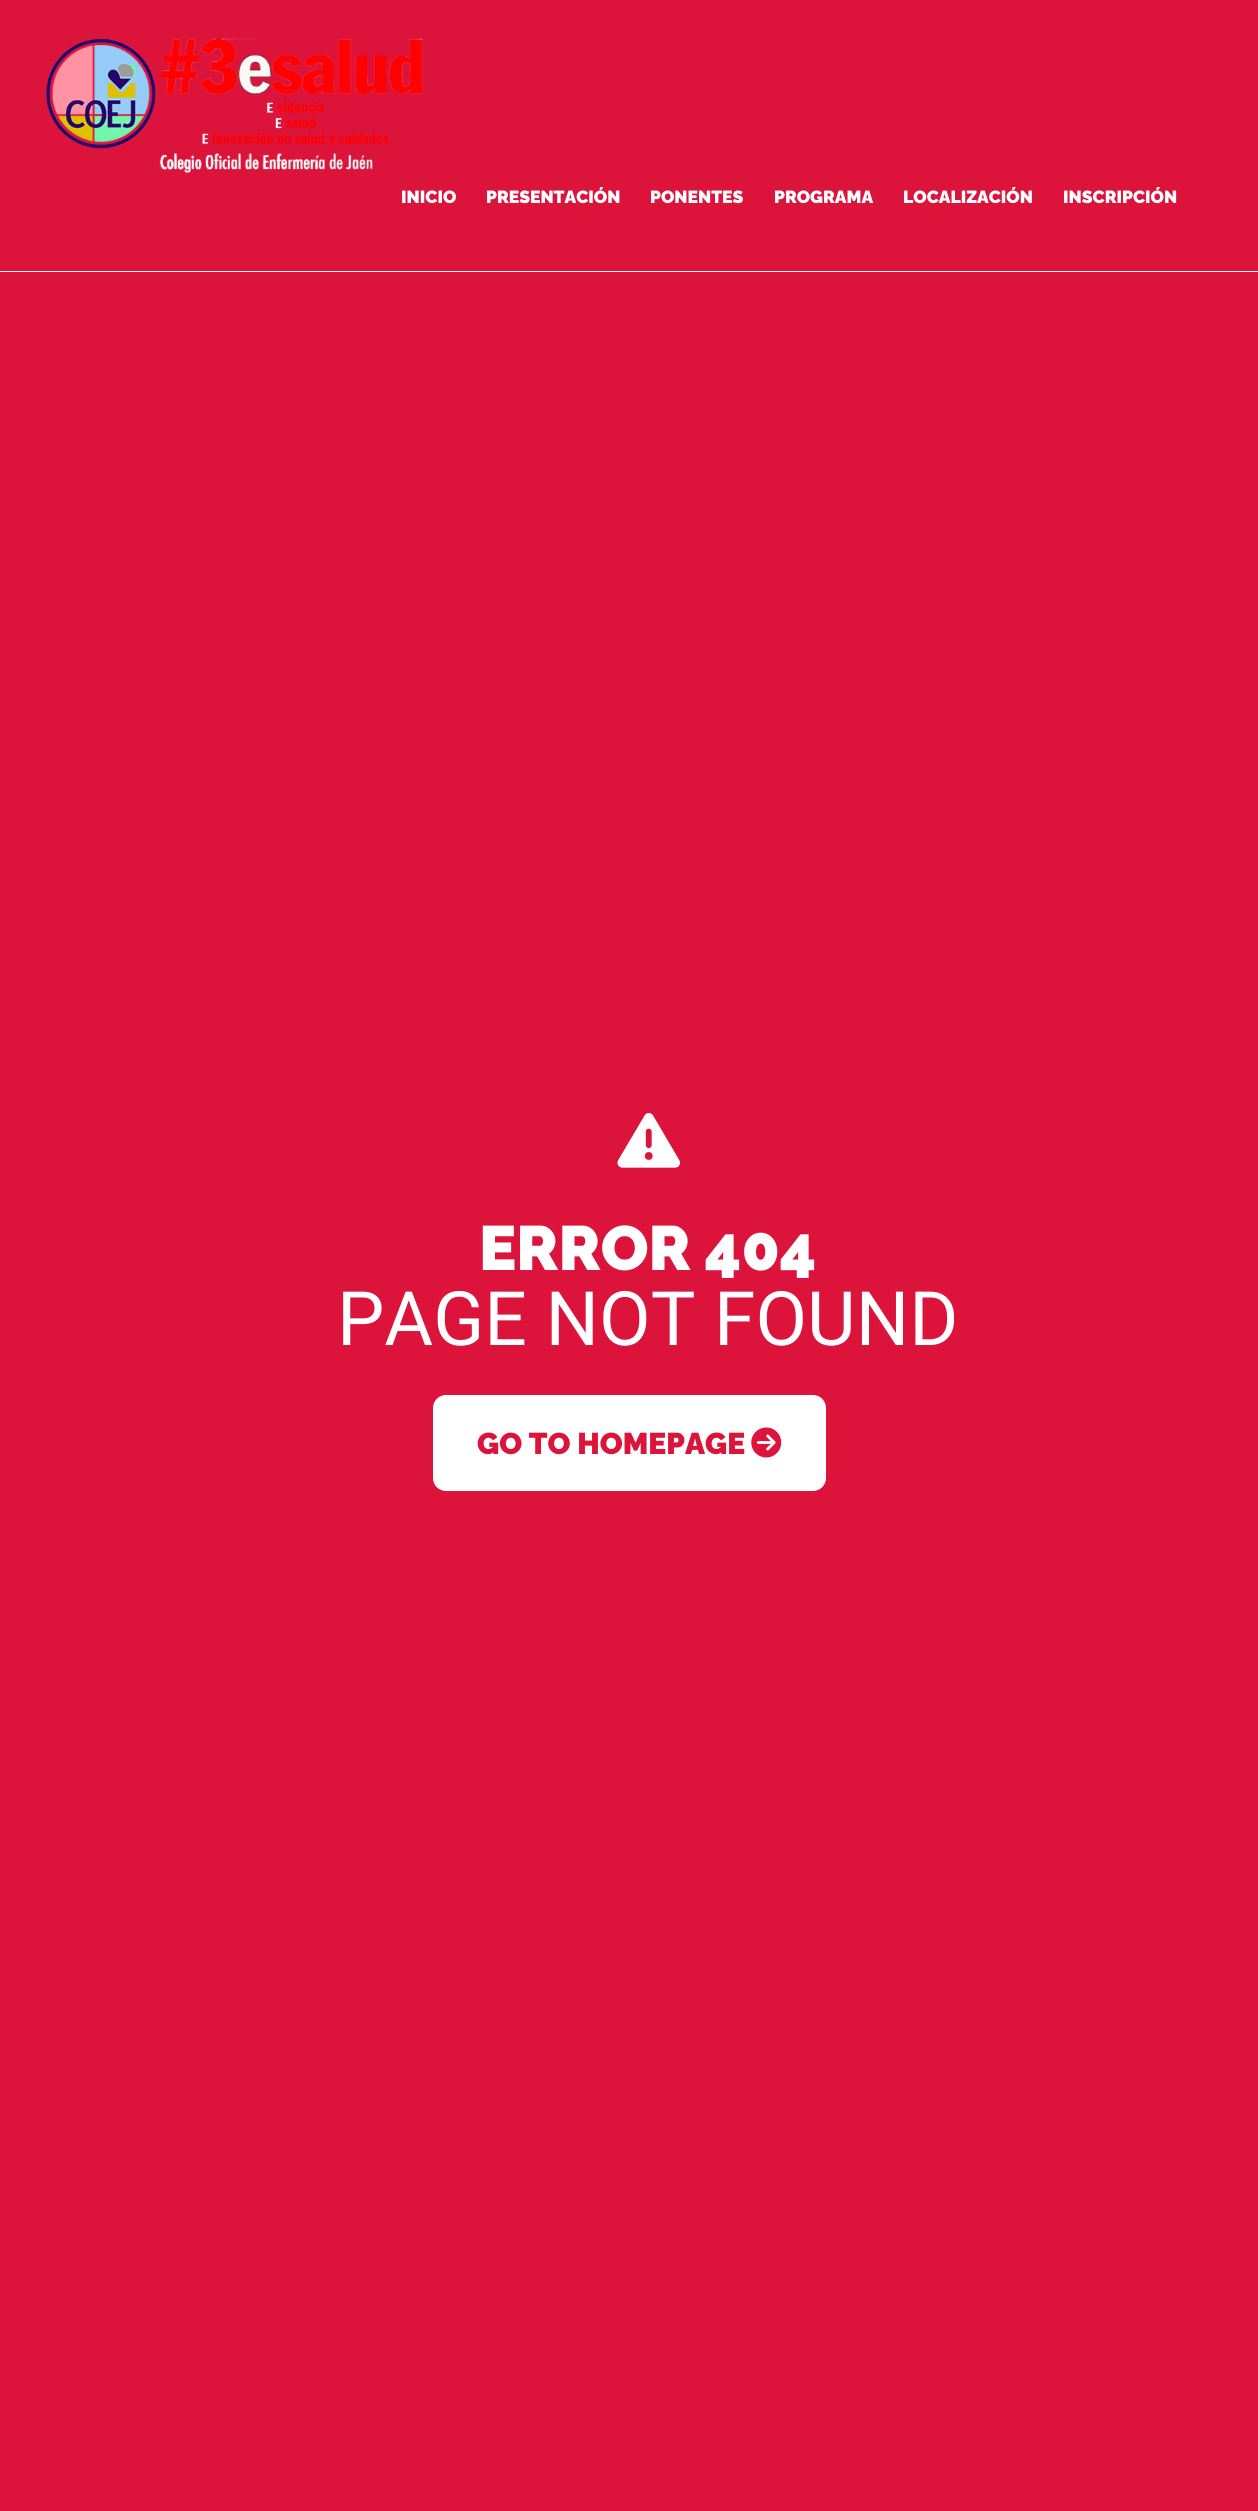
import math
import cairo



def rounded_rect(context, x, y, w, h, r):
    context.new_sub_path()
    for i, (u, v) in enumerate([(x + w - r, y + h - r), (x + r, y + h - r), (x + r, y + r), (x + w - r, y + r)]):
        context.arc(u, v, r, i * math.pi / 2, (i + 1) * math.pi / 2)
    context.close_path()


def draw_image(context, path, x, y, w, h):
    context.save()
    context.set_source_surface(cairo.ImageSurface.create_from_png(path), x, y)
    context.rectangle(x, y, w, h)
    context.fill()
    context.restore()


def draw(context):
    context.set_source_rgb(220 / 255, 20 / 255, 60 / 255)
    context.paint()
    context.set_source_rgb(1, 1, 1)
    context.rectangle(0, 271, 1258, 1)
    context.fill()
    draw_image(context, "images/1.png", 45, 38, 378, 135)
    draw_image(context, "images/2.png", 617, 1113, 63, 55)
    rounded_rect(context, 433.5, 1395.5, 392, 95, 12.5)
    context.fill_preserve()
    context.set_line_width(1)
    context.stroke()
    draw_image(context, "images/3.png", 751, 1427, 31, 31)
    context.select_font_face("Raleway Thin")
    context.set_font_size(17.5)
    context.move_to(401, 203)
    context.show_text("INICIO")
    context.move_to(486, 203)
    context.show_text("PRESENTACIÓN")
    context.move_to(650, 203)
    context.show_text("PONENTES")
    context.move_to(774, 203)
    context.show_text("PROGRAMA")
    context.move_to(903, 203)
    context.show_text("LOCALIZACIÓN")
    context.move_to(1063, 203)
    context.show_text("INSCRIPCIÓN")
    context.set_font_size(62.5)
    context.move_to(479, 1270)
    context.show_text("ERROR 404")
    context.select_font_face("Roboto")
    context.set_font_size(75)
    context.move_to(337, 1345)
    context.show_text("PAGE NOT FOUND")
    context.select_font_face("Raleway Thin")
    context.set_font_size(30)
    context.set_source_rgb(220 / 255, 20 / 255, 60 / 255)
    context.move_to(477, 1454)
    context.show_text("GO TO HOMEPAGE")


surface = cairo.ImageSurface(cairo.Format.RGB24, 1258, 2511)
context = cairo.Context(surface)
options = cairo.FontOptions()
options.set_hint_metrics(cairo.HintMetrics.OFF)
options.set_hint_style(cairo.HintStyle.NONE)
context.set_font_options(options)
context.set_miter_limit(4)
draw(context)
surface.write_to_png("out.png")
